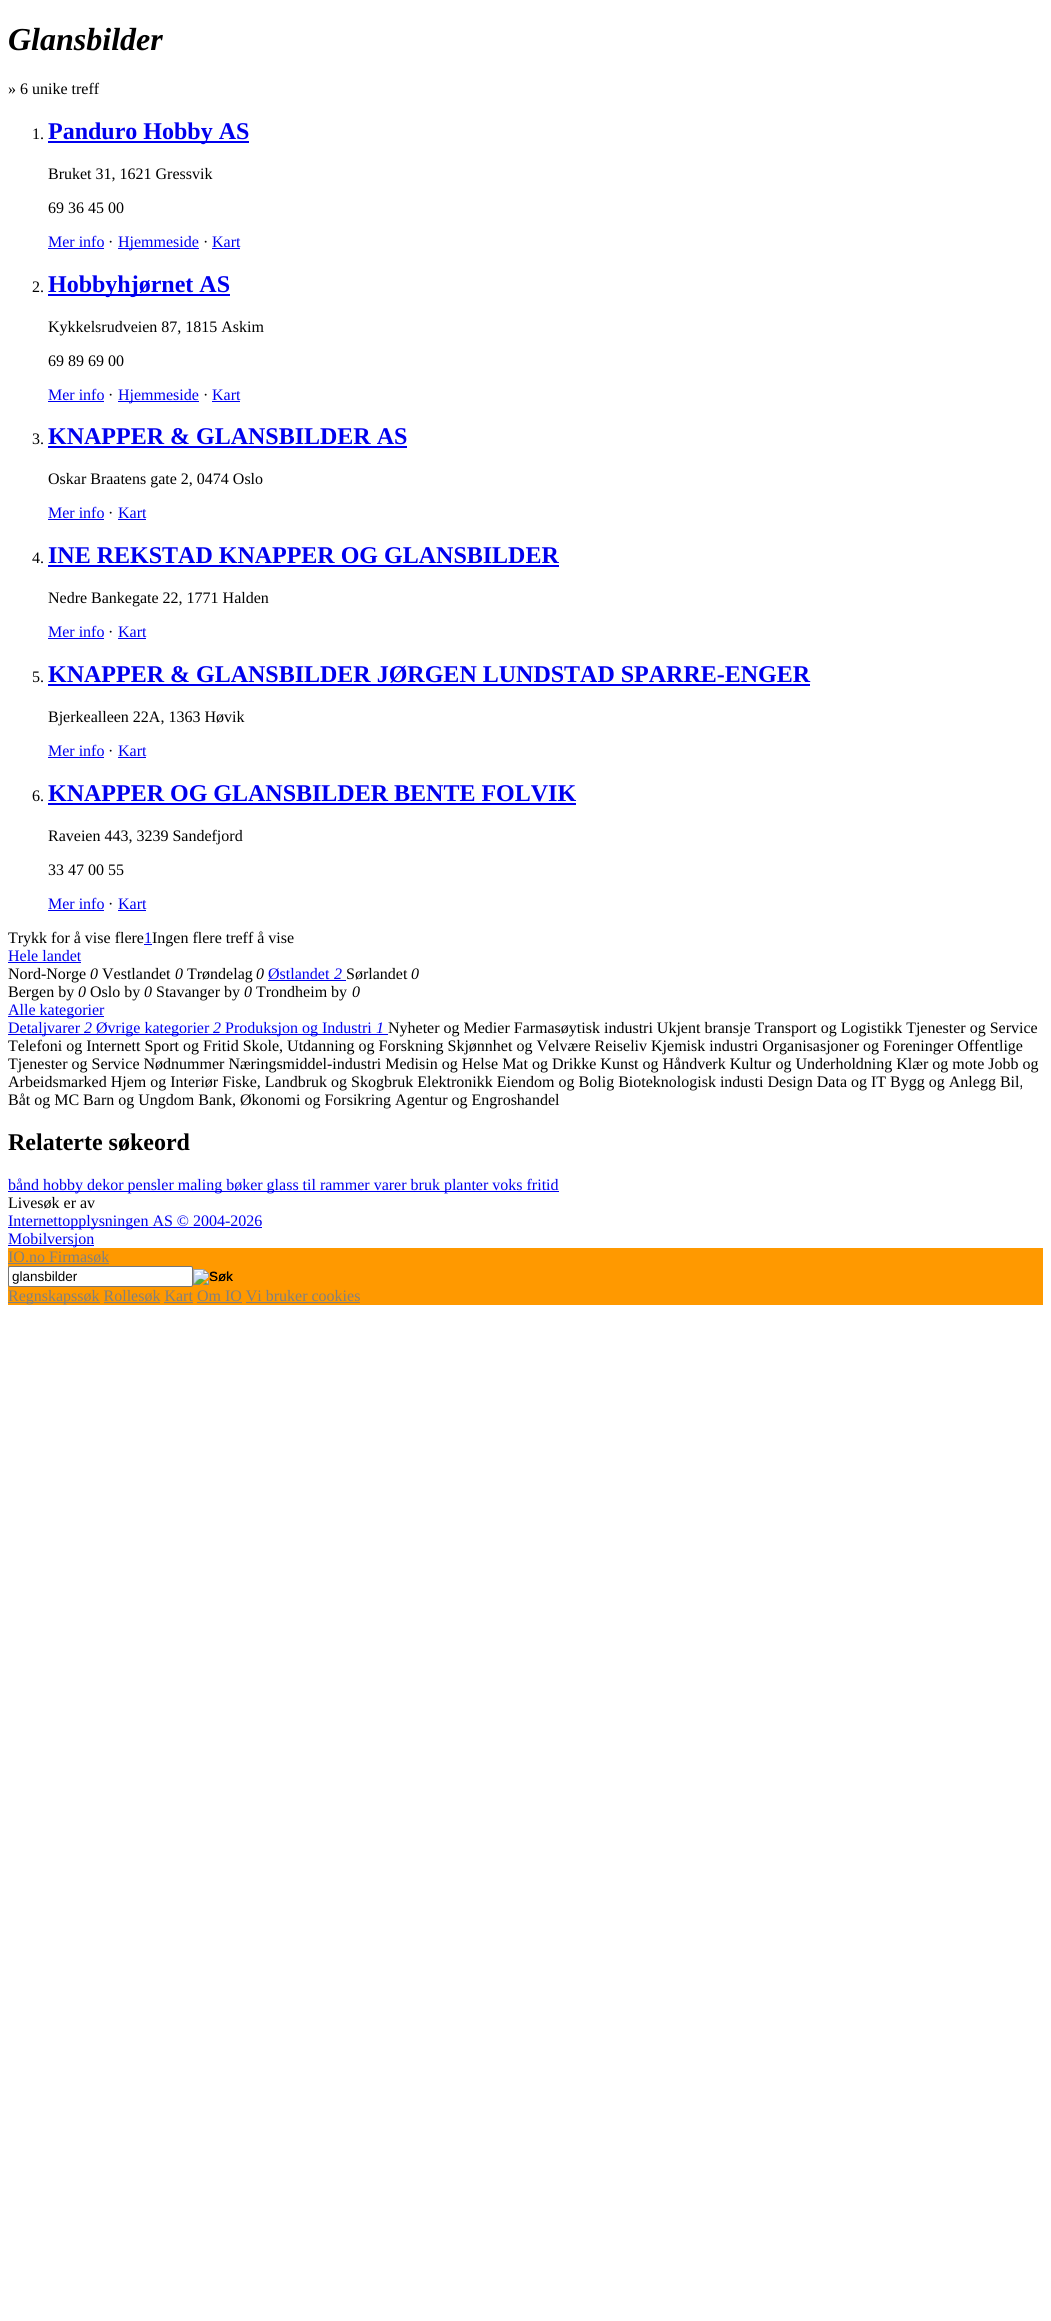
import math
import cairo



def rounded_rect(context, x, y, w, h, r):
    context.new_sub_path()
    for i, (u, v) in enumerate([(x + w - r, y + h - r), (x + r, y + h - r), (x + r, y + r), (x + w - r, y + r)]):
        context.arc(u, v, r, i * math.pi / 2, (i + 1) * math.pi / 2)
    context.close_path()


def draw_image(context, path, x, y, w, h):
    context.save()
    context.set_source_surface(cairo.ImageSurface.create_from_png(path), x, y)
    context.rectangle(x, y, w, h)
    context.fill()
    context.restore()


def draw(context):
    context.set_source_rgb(1, 1, 1)
    context.paint()
    context.set_source_rgb(0, 0, 238 / 255)
    context.rectangle(48, 141, 201, 2)
    context.fill()
    context.rectangle(48, 248, 56, 1)
    context.fill()
    context.rectangle(118, 248, 81, 1)
    context.fill()
    context.rectangle(212, 248, 28, 1)
    context.fill()
    context.rectangle(48, 294, 182, 2)
    context.fill()
    context.rectangle(48, 401, 56, 1)
    context.fill()
    context.rectangle(118, 401, 81, 1)
    context.fill()
    context.rectangle(212, 401, 28, 1)
    context.fill()
    context.rectangle(48, 446, 359, 2)
    context.fill()
    context.rectangle(48, 519, 56, 1)
    context.fill()
    context.rectangle(118, 519, 28, 1)
    context.fill()
    context.rectangle(48, 565, 511, 2)
    context.fill()
    context.rectangle(48, 638, 56, 1)
    context.fill()
    context.rectangle(118, 638, 28, 1)
    context.fill()
    context.rectangle(48, 684, 762, 2)
    context.fill()
    context.rectangle(48, 757, 56, 1)
    context.fill()
    context.rectangle(118, 757, 28, 1)
    context.fill()
    context.rectangle(48, 803, 528, 2)
    context.fill()
    context.rectangle(48, 910, 56, 1)
    context.fill()
    context.rectangle(118, 910, 28, 1)
    context.fill()
    context.rectangle(144, 944, 8, 1)
    context.fill()
    context.rectangle(8, 962, 73, 1)
    context.fill()
    context.rectangle(268, 980, 78, 1)
    context.fill()
    context.rectangle(8, 1016, 96, 1)
    context.fill()
    context.rectangle(8, 1034, 380, 1)
    context.fill()
    context.rectangle(8, 1191, 551, 1)
    context.fill()
    context.rectangle(8, 1227, 254, 1)
    context.fill()
    context.rectangle(8, 1245, 86, 1)
    context.fill()
    context.set_source_rgb(1, 153 / 255, 0)
    context.rectangle(8, 1248, 1035, 57)
    context.fill()
    context.set_source_rgb(128 / 255, 128 / 255, 128 / 255)
    context.rectangle(8, 1263, 101, 1)
    context.fill()
    context.set_source_rgb(1, 1, 1)
    rounded_rect(context, 8.5, 1266.5, 184, 20, 1.5)
    context.fill_preserve()
    context.set_source_rgb(118 / 255, 118 / 255, 118 / 255)
    context.set_line_width(1)
    context.stroke()
    draw_image(context, "images/1.png", 193, 1269, 40, 16)
    context.set_source_rgb(128 / 255, 128 / 255, 128 / 255)
    context.rectangle(8, 1302, 92, 1)
    context.fill()
    context.rectangle(104, 1302, 56, 1)
    context.fill()
    context.rectangle(164, 1302, 29, 1)
    context.fill()
    context.rectangle(197, 1302, 45, 1)
    context.fill()
    context.rectangle(246, 1302, 114, 1)
    context.fill()
    context.select_font_face("Liberation Serif", cairo.FontSlant.ITALIC, cairo.FontWeight.BOLD)
    context.set_font_size(32)
    context.set_source_rgb(0, 0, 0)
    context.move_to(8, 50)
    context.show_text("Glansbilder")
    context.select_font_face("Liberation Serif")
    context.set_font_size(16)
    context.move_to(8, 94)
    context.show_text("» 6 unike treff")
    context.move_to(32, 139)
    context.show_text("1.")
    context.select_font_face("Liberation Serif", cairo.FontSlant.NORMAL, cairo.FontWeight.BOLD)
    context.set_font_size(24)
    context.set_source_rgb(0, 0, 238 / 255)
    context.move_to(48, 139)
    context.show_text("Panduro Hobby AS")
    context.select_font_face("Liberation Serif")
    context.set_font_size(16)
    context.set_source_rgb(0, 0, 0)
    context.move_to(48, 179)
    context.show_text("Bruket 31, 1621 Gressvik")
    context.move_to(48, 213)
    context.show_text("69 36 45 00")
    context.set_source_rgb(0, 0, 238 / 255)
    context.move_to(48, 247)
    context.show_text("Mer info")
    context.set_source_rgb(0, 0, 0)
    context.move_to(108, 247)
    context.show_text("·")
    context.set_source_rgb(0, 0, 238 / 255)
    context.move_to(118, 247)
    context.show_text("Hjemmeside")
    context.set_source_rgb(0, 0, 0)
    context.move_to(203, 247)
    context.show_text("·")
    context.set_source_rgb(0, 0, 238 / 255)
    context.move_to(212, 247)
    context.show_text("Kart")
    context.set_source_rgb(0, 0, 0)
    context.move_to(32, 292)
    context.show_text("2.")
    context.select_font_face("Liberation Serif", cairo.FontSlant.NORMAL, cairo.FontWeight.BOLD)
    context.set_font_size(24)
    context.set_source_rgb(0, 0, 238 / 255)
    context.move_to(48, 292)
    context.show_text("Hobbyhjørnet AS")
    context.select_font_face("Liberation Serif")
    context.set_font_size(16)
    context.set_source_rgb(0, 0, 0)
    context.move_to(48, 332)
    context.show_text("Kykkelsrudveien 87, 1815 Askim")
    context.move_to(48, 366)
    context.show_text("69 89 69 00")
    context.set_source_rgb(0, 0, 238 / 255)
    context.move_to(48, 400)
    context.show_text("Mer info")
    context.set_source_rgb(0, 0, 0)
    context.move_to(108, 400)
    context.show_text("·")
    context.set_source_rgb(0, 0, 238 / 255)
    context.move_to(118, 400)
    context.show_text("Hjemmeside")
    context.set_source_rgb(0, 0, 0)
    context.move_to(203, 400)
    context.show_text("·")
    context.set_source_rgb(0, 0, 238 / 255)
    context.move_to(212, 400)
    context.show_text("Kart")
    context.set_source_rgb(0, 0, 0)
    context.move_to(32, 444)
    context.show_text("3.")
    context.select_font_face("Liberation Serif", cairo.FontSlant.NORMAL, cairo.FontWeight.BOLD)
    context.set_font_size(24)
    context.set_source_rgb(0, 0, 238 / 255)
    context.move_to(48, 444)
    context.show_text("KNAPPER & GLANSBILDER AS")
    context.select_font_face("Liberation Serif")
    context.set_font_size(16)
    context.set_source_rgb(0, 0, 0)
    context.move_to(48, 484)
    context.show_text("Oskar Braatens gate 2, 0474 Oslo")
    context.set_source_rgb(0, 0, 238 / 255)
    context.move_to(48, 518)
    context.show_text("Mer info")
    context.set_source_rgb(0, 0, 0)
    context.move_to(108, 518)
    context.show_text("·")
    context.set_source_rgb(0, 0, 238 / 255)
    context.move_to(118, 518)
    context.show_text("Kart")
    context.set_source_rgb(0, 0, 0)
    context.move_to(32, 563)
    context.show_text("4.")
    context.select_font_face("Liberation Serif", cairo.FontSlant.NORMAL, cairo.FontWeight.BOLD)
    context.set_font_size(24)
    context.set_source_rgb(0, 0, 238 / 255)
    context.move_to(48, 563)
    context.show_text("INE REKSTAD KNAPPER OG GLANSBILDER")
    context.select_font_face("Liberation Serif")
    context.set_font_size(16)
    context.set_source_rgb(0, 0, 0)
    context.move_to(48, 603)
    context.show_text("Nedre Bankegate 22, 1771 Halden")
    context.set_source_rgb(0, 0, 238 / 255)
    context.move_to(48, 637)
    context.show_text("Mer info")
    context.set_source_rgb(0, 0, 0)
    context.move_to(108, 637)
    context.show_text("·")
    context.set_source_rgb(0, 0, 238 / 255)
    context.move_to(118, 637)
    context.show_text("Kart")
    context.set_source_rgb(0, 0, 0)
    context.move_to(32, 682)
    context.show_text("5.")
    context.select_font_face("Liberation Serif", cairo.FontSlant.NORMAL, cairo.FontWeight.BOLD)
    context.set_font_size(24)
    context.set_source_rgb(0, 0, 238 / 255)
    context.move_to(48, 682)
    context.show_text("KNAPPER & GLANSBILDER JØRGEN LUNDSTAD SPARRE-ENGER")
    context.select_font_face("Liberation Serif")
    context.set_font_size(16)
    context.set_source_rgb(0, 0, 0)
    context.move_to(48, 722)
    context.show_text("Bjerkealleen 22A, 1363 Høvik")
    context.set_source_rgb(0, 0, 238 / 255)
    context.move_to(48, 756)
    context.show_text("Mer info")
    context.set_source_rgb(0, 0, 0)
    context.move_to(108, 756)
    context.show_text("·")
    context.set_source_rgb(0, 0, 238 / 255)
    context.move_to(118, 756)
    context.show_text("Kart")
    context.set_source_rgb(0, 0, 0)
    context.move_to(32, 801)
    context.show_text("6.")
    context.select_font_face("Liberation Serif", cairo.FontSlant.NORMAL, cairo.FontWeight.BOLD)
    context.set_font_size(24)
    context.set_source_rgb(0, 0, 238 / 255)
    context.move_to(48, 801)
    context.show_text("KNAPPER OG GLANSBILDER BENTE FOLVIK")
    context.select_font_face("Liberation Serif")
    context.set_font_size(16)
    context.set_source_rgb(0, 0, 0)
    context.move_to(48, 841)
    context.show_text("Raveien 443, 3239 Sandefjord")
    context.move_to(48, 875)
    context.show_text("33 47 00 55")
    context.set_source_rgb(0, 0, 238 / 255)
    context.move_to(48, 909)
    context.show_text("Mer info")
    context.set_source_rgb(0, 0, 0)
    context.move_to(108, 909)
    context.show_text("·")
    context.set_source_rgb(0, 0, 238 / 255)
    context.move_to(118, 909)
    context.show_text("Kart")
    context.set_source_rgb(0, 0, 0)
    context.move_to(8, 943)
    context.show_text("Trykk for å vise flere")
    context.set_source_rgb(0, 0, 238 / 255)
    context.move_to(144, 943)
    context.show_text("1")
    context.set_source_rgb(0, 0, 0)
    context.move_to(152, 943)
    context.show_text("Ingen flere treff å vise")
    context.set_source_rgb(0, 0, 238 / 255)
    context.move_to(8, 961)
    context.show_text("Hele landet")
    context.set_source_rgb(0, 0, 0)
    context.move_to(8, 979)
    context.show_text("Nord-Norge")
    context.select_font_face("Liberation Serif", cairo.FontSlant.ITALIC)
    context.move_to(90, 979)
    context.show_text("0")
    context.select_font_face("Liberation Serif")
    context.move_to(102, 979)
    context.show_text("Vestlandet")
    context.select_font_face("Liberation Serif", cairo.FontSlant.ITALIC)
    context.move_to(175, 979)
    context.show_text("0")
    context.select_font_face("Liberation Serif")
    context.move_to(187, 979)
    context.show_text("Trøndelag")
    context.select_font_face("Liberation Serif", cairo.FontSlant.ITALIC)
    context.move_to(256, 979)
    context.show_text("0")
    context.select_font_face("Liberation Serif")
    context.set_source_rgb(0, 0, 238 / 255)
    context.move_to(268, 979)
    context.show_text("Østlandet")
    context.select_font_face("Liberation Serif", cairo.FontSlant.ITALIC)
    context.move_to(334, 979)
    context.show_text("2")
    context.select_font_face("Liberation Serif")
    context.set_source_rgb(0, 0, 0)
    context.move_to(346, 979)
    context.show_text("Sørlandet")
    context.select_font_face("Liberation Serif", cairo.FontSlant.ITALIC)
    context.move_to(411, 979)
    context.show_text("0")
    context.select_font_face("Liberation Serif")
    context.move_to(8, 997)
    context.show_text("Bergen by")
    context.select_font_face("Liberation Serif", cairo.FontSlant.ITALIC)
    context.move_to(78, 997)
    context.show_text("0")
    context.select_font_face("Liberation Serif")
    context.move_to(90, 997)
    context.show_text("Oslo by")
    context.select_font_face("Liberation Serif", cairo.FontSlant.ITALIC)
    context.move_to(144, 997)
    context.show_text("0")
    context.select_font_face("Liberation Serif")
    context.move_to(156, 997)
    context.show_text("Stavanger by")
    context.select_font_face("Liberation Serif", cairo.FontSlant.ITALIC)
    context.move_to(244, 997)
    context.show_text("0")
    context.select_font_face("Liberation Serif")
    context.move_to(256, 997)
    context.show_text("Trondheim by")
    context.select_font_face("Liberation Serif", cairo.FontSlant.ITALIC)
    context.move_to(352, 997)
    context.show_text("0")
    context.select_font_face("Liberation Serif")
    context.set_source_rgb(0, 0, 238 / 255)
    context.move_to(8, 1015)
    context.show_text("Alle kategorier")
    context.move_to(8, 1033)
    context.show_text("Detaljvarer")
    context.select_font_face("Liberation Serif", cairo.FontSlant.ITALIC)
    context.move_to(84, 1033)
    context.show_text("2")
    context.select_font_face("Liberation Serif")
    context.move_to(96, 1033)
    context.show_text("Øvrige kategorier")
    context.select_font_face("Liberation Serif", cairo.FontSlant.ITALIC)
    context.move_to(213, 1033)
    context.show_text("2")
    context.select_font_face("Liberation Serif")
    context.move_to(225, 1033)
    context.show_text("Produksjon og Industri")
    context.select_font_face("Liberation Serif", cairo.FontSlant.ITALIC)
    context.move_to(376, 1033)
    context.show_text("1")
    context.select_font_face("Liberation Serif")
    context.set_source_rgb(0, 0, 0)
    context.move_to(388, 1033)
    context.show_text("Nyheter og Medier Farmasøytisk industri Ukjent bransje Transport og Logistikk Tjenester og Service")
    context.move_to(8, 1051)
    context.show_text("Telefoni og Internett Sport og Fritid Skole, Utdanning og Forskning Skjønnhet og Velvære Reiseliv Kjemisk industri Organisasjoner og Foreninger Offentlige")
    context.move_to(8, 1069)
    context.show_text("Tjenester og Service Nødnummer Næringsmiddel-industri Medisin og Helse Mat og Drikke Kunst og Håndverk Kultur og Underholdning Klær og mote Jobb og")
    context.move_to(8, 1087)
    context.show_text("Arbeidsmarked Hjem og Interiør Fiske, Landbruk og Skogbruk Elektronikk Eiendom og Bolig Bioteknologisk industi Design Data og IT Bygg og Anlegg Bil,")
    context.move_to(8, 1105)
    context.show_text("Båt og MC Barn og Ungdom Bank, Økonomi og Forsikring Agentur og Engroshandel")
    context.select_font_face("Liberation Serif", cairo.FontSlant.NORMAL, cairo.FontWeight.BOLD)
    context.set_font_size(24)
    context.move_to(8, 1150)
    context.show_text("Relaterte søkeord")
    context.select_font_face("Liberation Serif")
    context.set_font_size(16)
    context.set_source_rgb(0, 0, 238 / 255)
    context.move_to(8, 1190)
    context.show_text("bånd hobby dekor pensler maling bøker glass til rammer varer bruk planter voks fritid")
    context.set_source_rgb(0, 0, 0)
    context.move_to(8, 1208)
    context.show_text("Livesøk er av")
    context.set_source_rgb(0, 0, 238 / 255)
    context.move_to(8, 1226)
    context.show_text("Internettopplysningen AS © 2004-2026")
    context.move_to(8, 1244)
    context.show_text("Mobilversjon")
    context.set_source_rgb(128 / 255, 128 / 255, 128 / 255)
    context.move_to(8, 1262)
    context.show_text("IO.no Firmasøk")
    context.select_font_face("Liberation Sans")
    context.set_font_size(13.5)
    context.set_source_rgb(0, 0, 0)
    context.move_to(12, 1281)
    context.show_text("glansbilder")
    context.move_to(209, 1281)
    context.show_text("Søk")
    context.select_font_face("Liberation Serif")
    context.set_font_size(16)
    context.set_source_rgb(128 / 255, 128 / 255, 128 / 255)
    context.move_to(8, 1301)
    context.show_text("Regnskapssøk Rollesøk Kart Om IO Vi bruker cookies")


surface = cairo.ImageSurface(cairo.Format.RGB24, 1051, 2321)
context = cairo.Context(surface)
options = cairo.FontOptions()
options.set_hint_metrics(cairo.HintMetrics.OFF)
options.set_hint_style(cairo.HintStyle.NONE)
context.set_font_options(options)
context.set_miter_limit(4)
draw(context)
surface.write_to_png("out.png")
